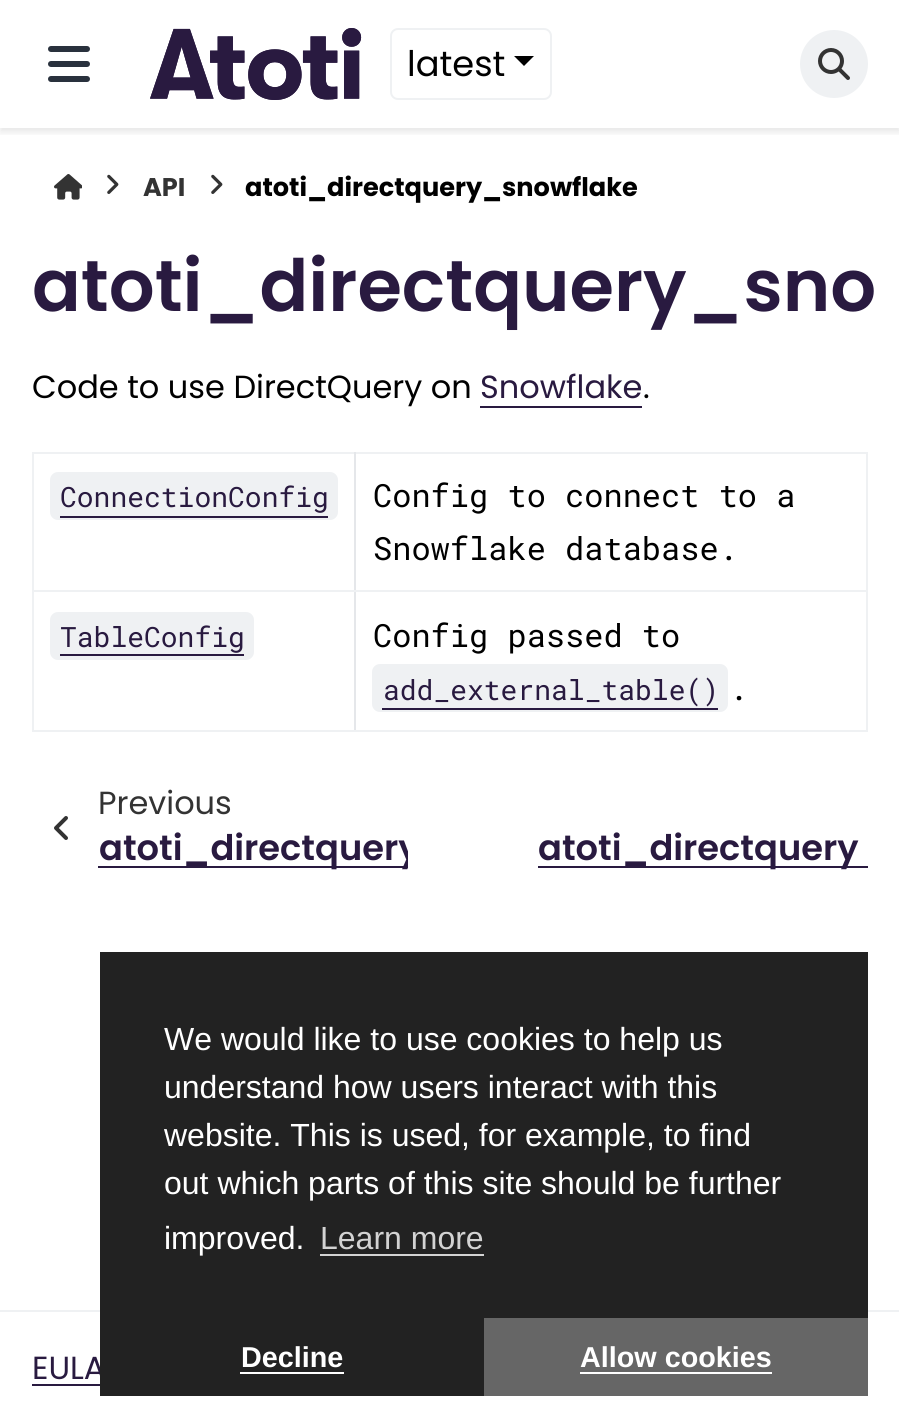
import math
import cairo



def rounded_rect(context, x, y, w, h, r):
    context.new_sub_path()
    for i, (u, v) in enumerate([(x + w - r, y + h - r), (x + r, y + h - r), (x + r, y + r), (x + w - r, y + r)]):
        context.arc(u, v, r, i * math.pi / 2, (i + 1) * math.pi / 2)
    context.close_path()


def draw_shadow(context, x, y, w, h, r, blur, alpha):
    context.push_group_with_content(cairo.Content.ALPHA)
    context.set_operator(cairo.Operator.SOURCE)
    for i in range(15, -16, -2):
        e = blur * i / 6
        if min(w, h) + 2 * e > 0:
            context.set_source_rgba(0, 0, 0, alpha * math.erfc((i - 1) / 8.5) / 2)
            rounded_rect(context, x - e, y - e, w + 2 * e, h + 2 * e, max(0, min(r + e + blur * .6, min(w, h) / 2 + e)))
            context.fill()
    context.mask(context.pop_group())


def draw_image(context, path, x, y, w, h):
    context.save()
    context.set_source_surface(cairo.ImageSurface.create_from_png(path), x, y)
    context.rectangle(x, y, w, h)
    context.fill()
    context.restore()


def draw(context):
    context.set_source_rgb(1, 1, 1)
    context.paint()
    context.save()
    context.rectangle(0, 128, 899, 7)
    context.clip()
    context.set_source_rgb(0, 0, 0)
    draw_shadow(context, 0, 4, 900, 128, 0, 4, 0.1)
    context.restore()
    draw_image(context, "images/1.png", 48, 46, 42, 36)
    draw_image(context, "images/2.png", 150, 28, 212, 72)
    rounded_rect(context, 391, 29, 160, 70, 7)
    context.set_source_rgb(239 / 255, 241 / 255, 243 / 255)
    context.stroke()
    context.set_source_rgb(0, 0, 0)
    context.new_path()
    context.move_to(514, 56)
    context.line_to(534, 56)
    context.line_to(524, 66)
    context.close_path()
    context.fill()
    context.set_source_rgb(239 / 255, 241 / 255, 243 / 255)
    context.arc(834, 64, 33, 0, 2 * math.pi)
    context.fill_preserve()
    context.stroke()
    draw_image(context, "images/3.png", 818, 48, 32, 32)
    draw_image(context, "images/4.png", 54, 174, 28, 26)
    draw_image(context, "images/5.png", 107, 174, 12, 20)
    draw_image(context, "images/5.png", 211, 174, 12, 20)
    context.set_source_rgb(41 / 255, 26 / 255, 64 / 255)
    context.rectangle(480, 406, 162, 2)
    context.fill()
    context.set_source_rgb(239 / 255, 241 / 255, 243 / 255)
    context.rectangle(32, 452, 836, 2)
    context.fill()
    context.rectangle(866, 452, 2, 280)
    context.fill()
    context.rectangle(356, 730, 512, 2)
    context.fill()
    context.rectangle(32, 452, 2, 280)
    context.fill()
    context.set_source_rgb(229 / 255, 231 / 255, 234 / 255)
    context.rectangle(354, 590, 2, 142)
    context.fill()
    context.set_source_rgb(239 / 255, 241 / 255, 243 / 255)
    context.rectangle(354, 590, 514, 2)
    context.fill()
    context.set_source_rgb(229 / 255, 231 / 255, 234 / 255)
    context.rectangle(354, 452, 2, 140)
    context.fill()
    context.set_source_rgb(239 / 255, 241 / 255, 243 / 255)
    context.rectangle(32, 590, 324, 2)
    context.fill()
    rounded_rect(context, 51, 473, 286, 46, 7)
    context.fill_preserve()
    context.stroke()
    context.set_source_rgb(41 / 255, 26 / 255, 64 / 255)
    context.rectangle(60, 516, 268, 2)
    context.fill()
    context.set_source_rgb(239 / 255, 241 / 255, 243 / 255)
    context.rectangle(32, 730, 324, 2)
    context.fill()
    rounded_rect(context, 51, 613, 202, 46, 7)
    context.fill_preserve()
    context.stroke()
    context.set_source_rgb(41 / 255, 26 / 255, 64 / 255)
    context.rectangle(60, 654, 184, 2)
    context.fill()
    context.set_source_rgb(239 / 255, 241 / 255, 243 / 255)
    rounded_rect(context, 373, 665, 354, 46, 7)
    context.fill_preserve()
    context.stroke()
    context.set_source_rgb(41 / 255, 26 / 255, 64 / 255)
    context.rectangle(382, 708, 336, 2)
    context.fill()
    draw_image(context, "images/6.png", 54, 816, 14, 24)
    context.rectangle(98, 866, 310, 2)
    context.fill()
    context.rectangle(538, 866, 330, 2)
    context.fill()
    context.set_source_rgb(239 / 255, 241 / 255, 243 / 255)
    context.rectangle(0, 1310, 899, 2)
    context.fill()
    context.set_source_rgb(41 / 255, 26 / 255, 64 / 255)
    context.rectangle(32, 1384, 74, 2)
    context.fill()
    context.select_font_face("Poppins")
    context.set_font_size(35.25)
    context.set_source_rgb(0, 0, 0)
    context.move_to(407, 76)
    context.show_text("latest")
    context.select_font_face("Poppins", cairo.FontSlant.NORMAL, cairo.FontWeight.BOLD)
    context.set_font_size(25.6)
    context.set_source_rgb(51 / 255, 51 / 255, 51 / 255)
    context.move_to(143, 196)
    context.show_text("API")
    context.set_source_rgb(0, 0, 0)
    context.move_to(245, 196)
    context.show_text("atoti_directquery_snowflake")
    context.select_font_face("Poppins SemiBold")
    context.set_font_size(72)
    context.set_source_rgb(41 / 255, 26 / 255, 64 / 255)
    context.move_to(32, 311)
    context.show_text("atoti_directquery_sno")
    context.select_font_face("Poppins")
    context.set_font_size(32)
    context.set_source_rgb(0, 0, 0)
    context.move_to(32, 398)
    context.show_text("Code to use DirectQuery on")
    context.set_source_rgb(41 / 255, 26 / 255, 64 / 255)
    context.move_to(480, 398)
    context.show_text("Snowflake")
    context.set_source_rgb(0, 0, 0)
    context.move_to(643, 398)
    context.show_text(".")
    context.select_font_face("Roboto Mono")
    context.set_font_size(28)
    context.set_source_rgb(41 / 255, 26 / 255, 64 / 255)
    context.move_to(60, 507)
    context.show_text("ConnectionConfig")
    context.set_font_size(32)
    context.set_source_rgb(0, 0, 0)
    context.move_to(373, 507)
    context.show_text("Config to connect to a")
    context.move_to(373, 560)
    context.show_text("Snowflake database.")
    context.set_font_size(28)
    context.set_source_rgb(41 / 255, 26 / 255, 64 / 255)
    context.move_to(60, 647)
    context.show_text("TableConfig")
    context.set_font_size(32)
    context.set_source_rgb(0, 0, 0)
    context.move_to(373, 647)
    context.show_text("Config passed to")
    context.set_font_size(28)
    context.set_source_rgb(41 / 255, 26 / 255, 64 / 255)
    context.move_to(383, 700)
    context.show_text("add_external_table()")
    context.set_font_size(32)
    context.set_source_rgb(0, 0, 0)
    context.move_to(729, 700)
    context.show_text(".")
    context.select_font_face("Poppins")
    context.set_source_rgb(51 / 255, 51 / 255, 51 / 255)
    context.move_to(98, 814)
    context.show_text("Previous")
    context.save()
    context.rectangle(32, 764, 376, 128)
    context.clip()
    context.select_font_face("Poppins SemiBold")
    context.set_font_size(35.25)
    context.set_source_rgb(41 / 255, 26 / 255, 64 / 255)
    context.move_to(99, 860)
    context.show_text("atoti_directquery")
    context.restore()
    context.select_font_face("Poppins SemiBold")
    context.set_font_size(35.25)
    context.set_source_rgb(41 / 255, 26 / 255, 64 / 255)
    context.move_to(538, 860)
    context.show_text("atoti_directquery")
    context.select_font_face("Poppins")
    context.set_font_size(32)
    context.move_to(32, 1379)
    context.show_text("EULA")
    context.set_source_rgb(34 / 255, 34 / 255, 34 / 255)
    context.rectangle(100, 952, 768, 444)
    context.fill()
    context.select_font_face("Liberation Sans")
    context.set_source_rgb(1, 1, 1)
    context.move_to(164, 1050)
    context.show_text("We would like to use cookies to help us")
    context.move_to(164, 1098)
    context.show_text("understand how users interact with this")
    context.move_to(164, 1146)
    context.show_text("website. This is used, for example, to find")
    context.move_to(164, 1194)
    context.show_text("out which parts of this site should be further")
    context.move_to(164, 1249)
    context.show_text("improved.")
    context.set_source_rgb(211 / 255, 211 / 255, 211 / 255)
    context.move_to(320, 1249)
    context.show_text("Learn more")
    context.rectangle(320, 1254, 164, 2)
    context.fill()
    context.select_font_face("Liberation Sans", cairo.FontSlant.NORMAL, cairo.FontWeight.BOLD)
    context.set_font_size(28.75)
    context.set_source_rgb(1, 1, 1)
    context.move_to(241, 1367)
    context.show_text("Decline")
    context.rectangle(240, 1372, 104, 2)
    context.fill()
    context.set_source_rgb(102 / 255, 102 / 255, 102 / 255)
    context.rectangle(484, 1318, 384, 78)
    context.fill()
    context.set_source_rgb(1, 1, 1)
    context.move_to(580, 1367)
    context.show_text("Allow cookies")
    context.rectangle(580, 1372, 192, 2)
    context.fill()


surface = cairo.ImageSurface(cairo.Format.RGB24, 899, 1427)
context = cairo.Context(surface)
options = cairo.FontOptions()
options.set_hint_metrics(cairo.HintMetrics.OFF)
options.set_hint_style(cairo.HintStyle.NONE)
context.set_font_options(options)
context.set_miter_limit(4)
draw(context)
surface.write_to_png("out.png")
